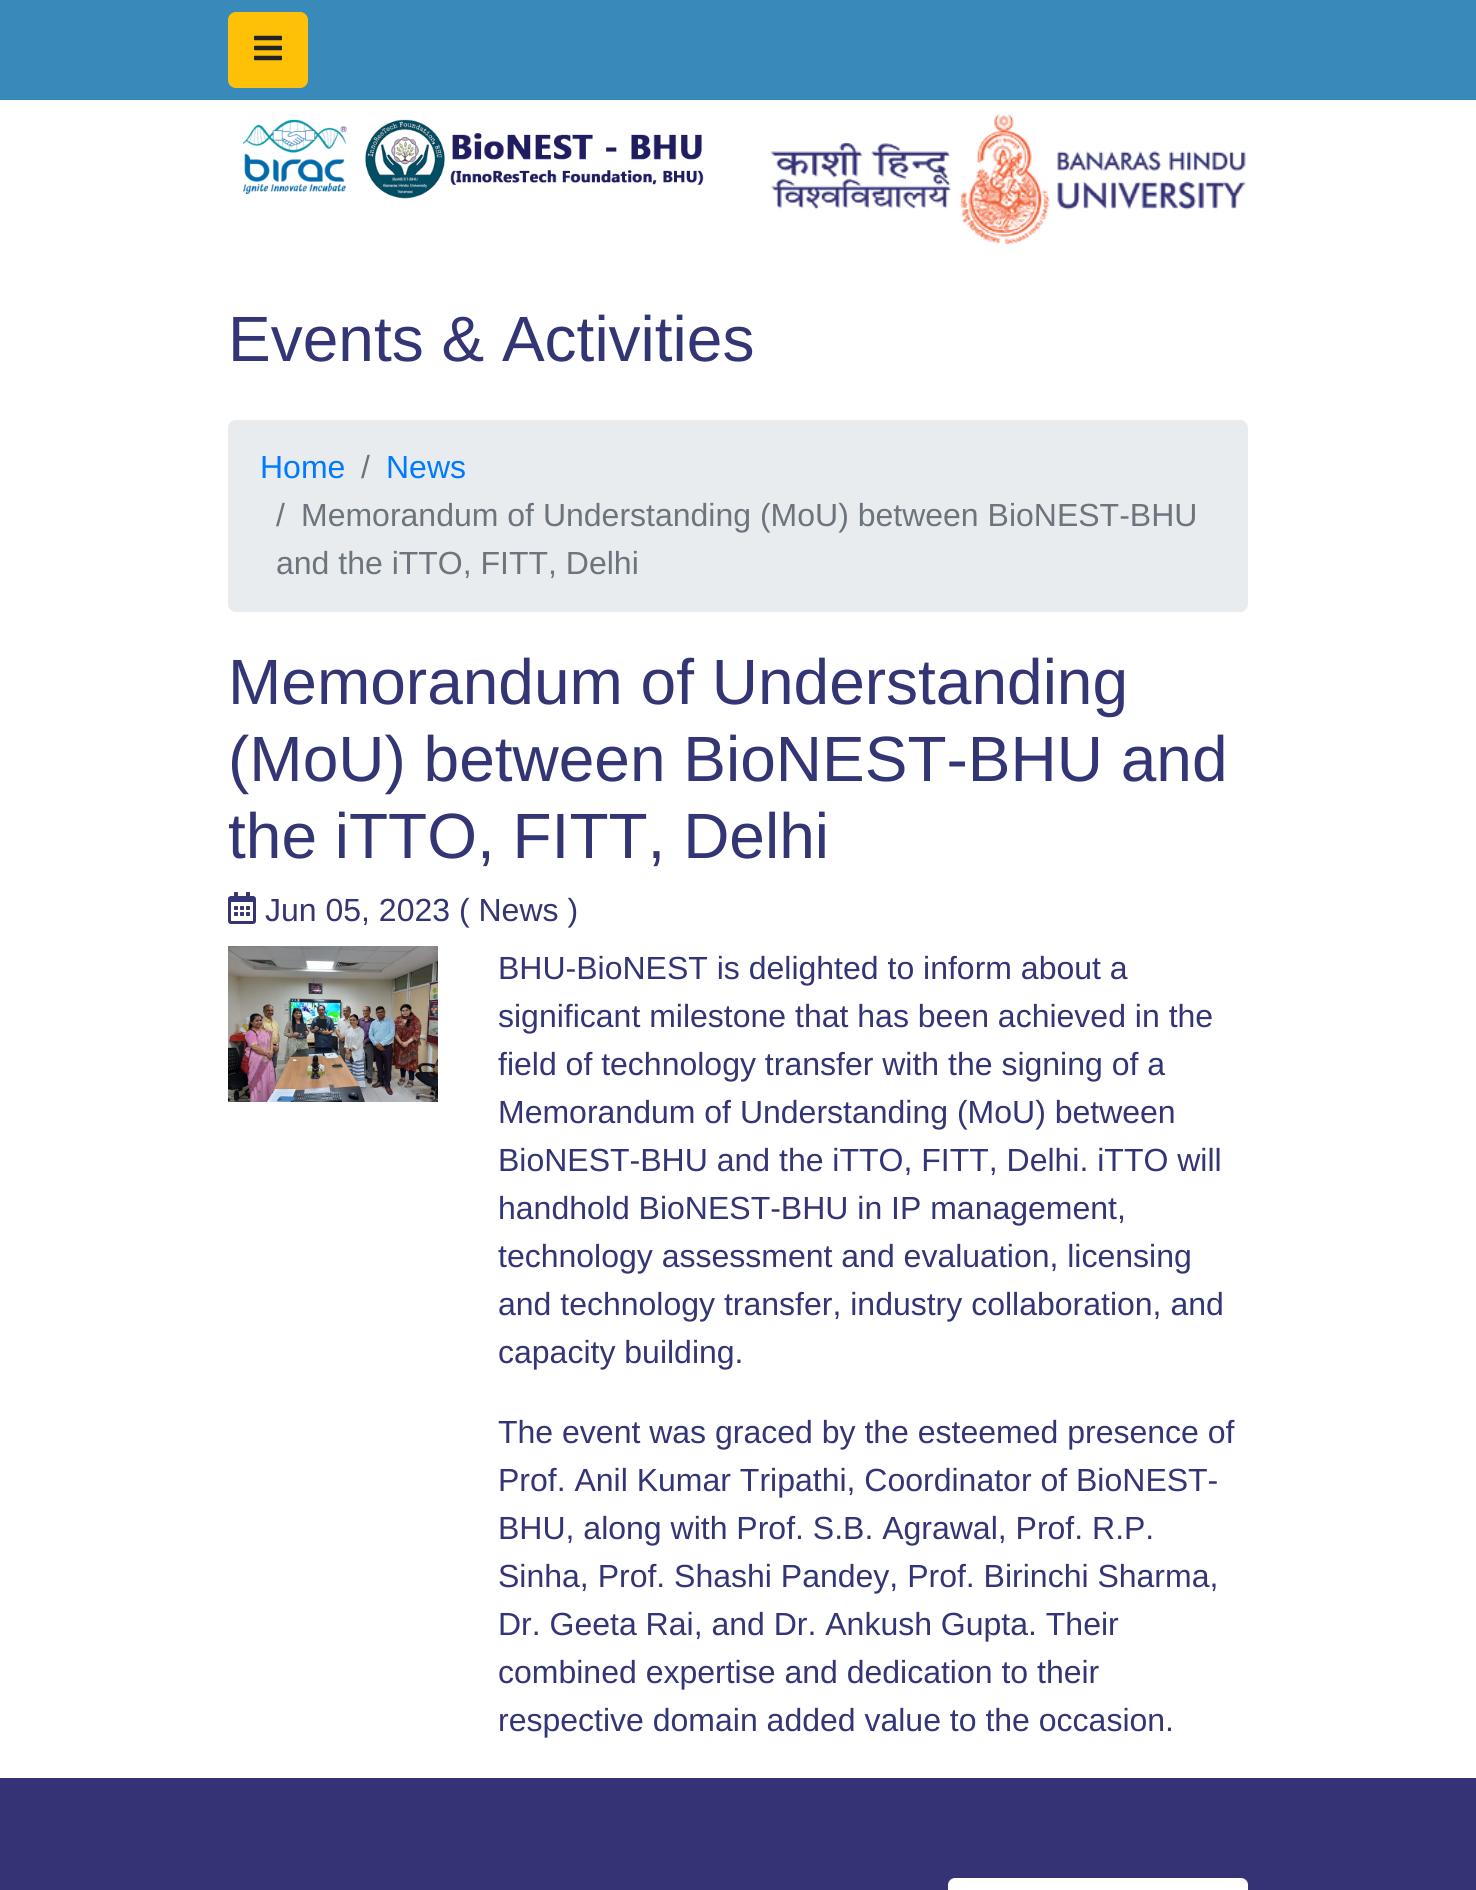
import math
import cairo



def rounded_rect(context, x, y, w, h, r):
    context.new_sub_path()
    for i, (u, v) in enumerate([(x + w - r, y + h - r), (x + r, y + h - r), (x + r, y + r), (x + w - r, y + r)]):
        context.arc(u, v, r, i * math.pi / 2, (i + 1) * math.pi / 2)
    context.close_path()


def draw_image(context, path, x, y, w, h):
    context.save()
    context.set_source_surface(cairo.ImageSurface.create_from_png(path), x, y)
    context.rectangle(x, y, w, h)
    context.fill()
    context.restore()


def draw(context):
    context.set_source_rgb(1, 1, 1)
    context.paint()
    context.set_source_rgb(57 / 255, 138 / 255, 187 / 255)
    context.rectangle(0, 0, 1476, 100)
    context.fill()
    context.set_source_rgb(1, 193 / 255, 7 / 255)
    rounded_rect(context, 229, 13, 78, 74, 7)
    context.fill_preserve()
    context.stroke()
    draw_image(context, "images/1.png", 254, 35, 28, 26)
    draw_image(context, "images/2.png", 243, 119, 461, 80)
    draw_image(context, "images/3.png", 770, 114, 476, 131)
    context.set_source_rgb(233 / 255, 236 / 255, 239 / 255)
    rounded_rect(context, 228, 420, 1020, 192, 8)
    context.fill()
    draw_image(context, "images/4.png", 228, 892, 28, 32)
    draw_image(context, "images/5.png", 228, 946, 210, 156)
    context.set_source_rgb(53 / 255, 50 / 255, 117 / 255)
    context.rectangle(0, 1778, 1476, 112)
    context.fill()
    draw_image(context, "images/6.png", 948, 1878, 300, 12)
    context.select_font_face("Liberation Sans")
    context.set_font_size(64)
    context.set_source_rgb(51 / 255, 53 / 255, 117 / 255)
    context.move_to(228, 361)
    context.show_text("Events & Activities")
    context.set_font_size(32)
    context.set_source_rgb(0, 123 / 255, 1)
    context.move_to(260, 478)
    context.show_text("Home")
    context.set_source_rgb(108 / 255, 117 / 255, 125 / 255)
    context.move_to(361, 478)
    context.show_text("/")
    context.set_source_rgb(0, 123 / 255, 1)
    context.move_to(386, 478)
    context.show_text("News")
    context.set_source_rgb(108 / 255, 117 / 255, 125 / 255)
    context.move_to(276, 526)
    context.show_text("/")
    context.move_to(301, 526)
    context.show_text("Memorandum of Understanding (MoU) between BioNEST-BHU")
    context.move_to(276, 574)
    context.show_text("and the iTTO, FITT, Delhi")
    context.set_font_size(64)
    context.set_source_rgb(51 / 255, 53 / 255, 117 / 255)
    context.move_to(228, 704)
    context.show_text("Memorandum of Understanding")
    context.move_to(228, 781)
    context.show_text("(MoU) between BioNEST-BHU and")
    context.move_to(228, 858)
    context.show_text("the iTTO, FITT, Delhi")
    context.set_font_size(32)
    context.move_to(265, 921)
    context.show_text("Jun 05, 2023 ( News )")
    context.move_to(498, 979)
    context.show_text("BHU-BioNEST is delighted to inform about a")
    context.move_to(498, 1027)
    context.show_text("significant milestone that has been achieved in the")
    context.move_to(498, 1075)
    context.show_text("field of technology transfer with the signing of a")
    context.move_to(498, 1123)
    context.show_text("Memorandum of Understanding (MoU) between")
    context.move_to(498, 1171)
    context.show_text("BioNEST-BHU and the iTTO, FITT, Delhi. iTTO will")
    context.move_to(498, 1219)
    context.show_text("handhold BioNEST-BHU in IP management,")
    context.move_to(498, 1267)
    context.show_text("technology assessment and evaluation, licensing")
    context.move_to(498, 1315)
    context.show_text("and technology transfer, industry collaboration, and")
    context.move_to(498, 1363)
    context.show_text("capacity building.")
    context.move_to(498, 1443)
    context.show_text("The event was graced by the esteemed presence of")
    context.move_to(498, 1491)
    context.show_text("Prof. Anil Kumar Tripathi, Coordinator of BioNEST-")
    context.move_to(498, 1539)
    context.show_text("BHU, along with Prof. S.B. Agrawal, Prof. R.P.")
    context.move_to(498, 1587)
    context.show_text("Sinha, Prof. Shashi Pandey, Prof. Birinchi Sharma,")
    context.move_to(498, 1635)
    context.show_text("Dr. Geeta Rai, and Dr. Ankush Gupta. Their")
    context.move_to(498, 1683)
    context.show_text("combined expertise and dedication to their")
    context.move_to(498, 1731)
    context.show_text("respective domain added value to the occasion.")


surface = cairo.ImageSurface(cairo.Format.RGB24, 1476, 1890)
context = cairo.Context(surface)
options = cairo.FontOptions()
options.set_hint_metrics(cairo.HintMetrics.OFF)
options.set_hint_style(cairo.HintStyle.NONE)
context.set_font_options(options)
context.set_miter_limit(4)
draw(context)
surface.write_to_png("out.png")
